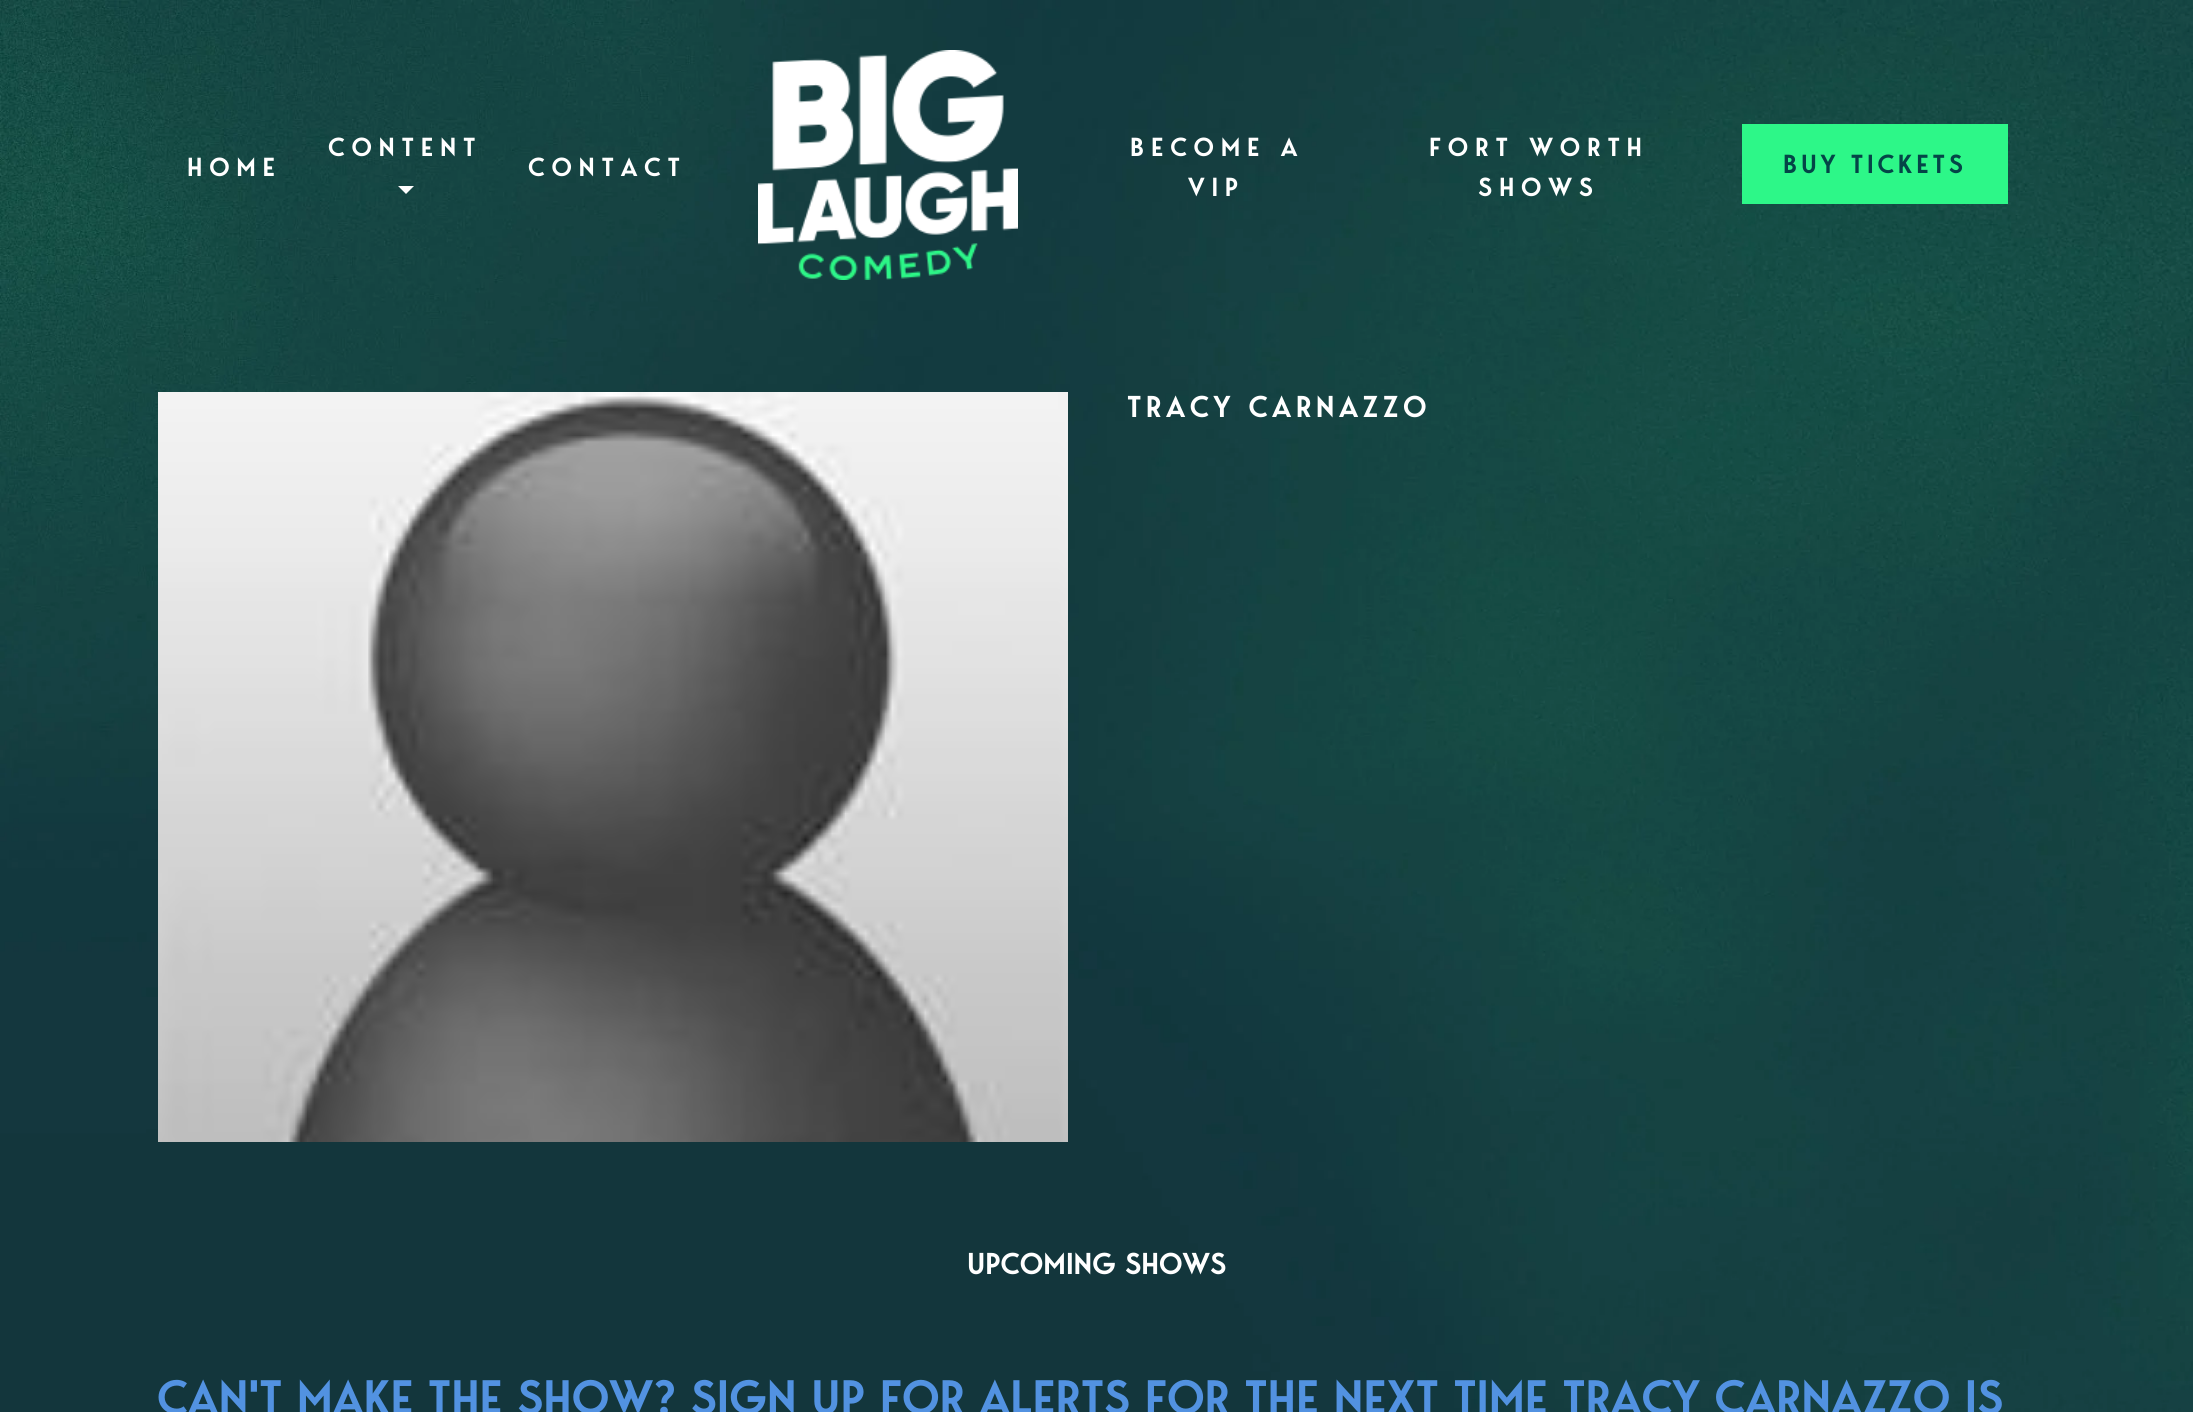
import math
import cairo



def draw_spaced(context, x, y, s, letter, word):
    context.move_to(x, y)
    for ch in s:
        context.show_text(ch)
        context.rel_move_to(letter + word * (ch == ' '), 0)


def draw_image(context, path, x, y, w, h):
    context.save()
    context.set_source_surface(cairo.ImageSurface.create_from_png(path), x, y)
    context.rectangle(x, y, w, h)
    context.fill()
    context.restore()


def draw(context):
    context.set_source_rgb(1, 1, 1)
    context.paint()
    draw_image(context, "images/1.png", 0, 0, 2193, 1412)
    context.set_source_rgb(1, 1, 1)
    context.new_path()
    context.move_to(398, 186)
    context.line_to(414, 186)
    context.line_to(406, 194)
    context.close_path()
    context.fill()
    draw_image(context, "images/2.png", 758, 50, 260, 230)
    context.set_source_rgb(45 / 255, 247 / 255, 136 / 255)
    context.rectangle(1742, 124, 266, 80)
    context.fill()
    draw_image(context, "images/3.png", 158, 392, 910, 750)
    context.select_font_face("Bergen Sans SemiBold")
    context.set_font_size(26)
    context.set_source_rgb(1, 1, 1)
    draw_spaced(context, 187, 176, "HOME", 6.75, 0)
    draw_spaced(context, 328, 156, "CONTENT", 6.75, 0)
    draw_spaced(context, 528, 176, "CONTACT", 6.75, 0)
    draw_spaced(context, 1130, 156, "BECOME A", 6.75, 0)
    draw_spaced(context, 1188, 196, "VIP", 6.75, 0)
    draw_spaced(context, 1429, 156, "FORT WORTH", 6.75, 0)
    draw_spaced(context, 1478, 196, "SHOWS", 6.75, 0)
    context.set_source_rgb(4 / 255, 69 / 255, 71 / 255)
    draw_spaced(context, 1783, 173, "BUY TICKETS", 3.75, 0)
    context.set_font_size(30)
    context.set_source_rgb(1, 1, 1)
    draw_spaced(context, 1127, 417, "TRACY CARNAZZO", 4.4, 0)
    context.move_to(967, 1274)
    context.show_text("UPCOMING SHOWS")
    context.set_font_size(48)
    context.set_source_rgb(82 / 255, 146 / 255, 225 / 255)
    context.move_to(157, 1414)
    context.show_text("CAN'T MAKE THE SHOW? SIGN UP FOR ALERTS FOR THE NEXT TIME TRACY CARNAZZO IS")


surface = cairo.ImageSurface(cairo.Format.RGB24, 2193, 1412)
context = cairo.Context(surface)
options = cairo.FontOptions()
options.set_hint_metrics(cairo.HintMetrics.OFF)
options.set_hint_style(cairo.HintStyle.NONE)
context.set_font_options(options)
context.set_miter_limit(4)
draw(context)
surface.write_to_png("out.png")
